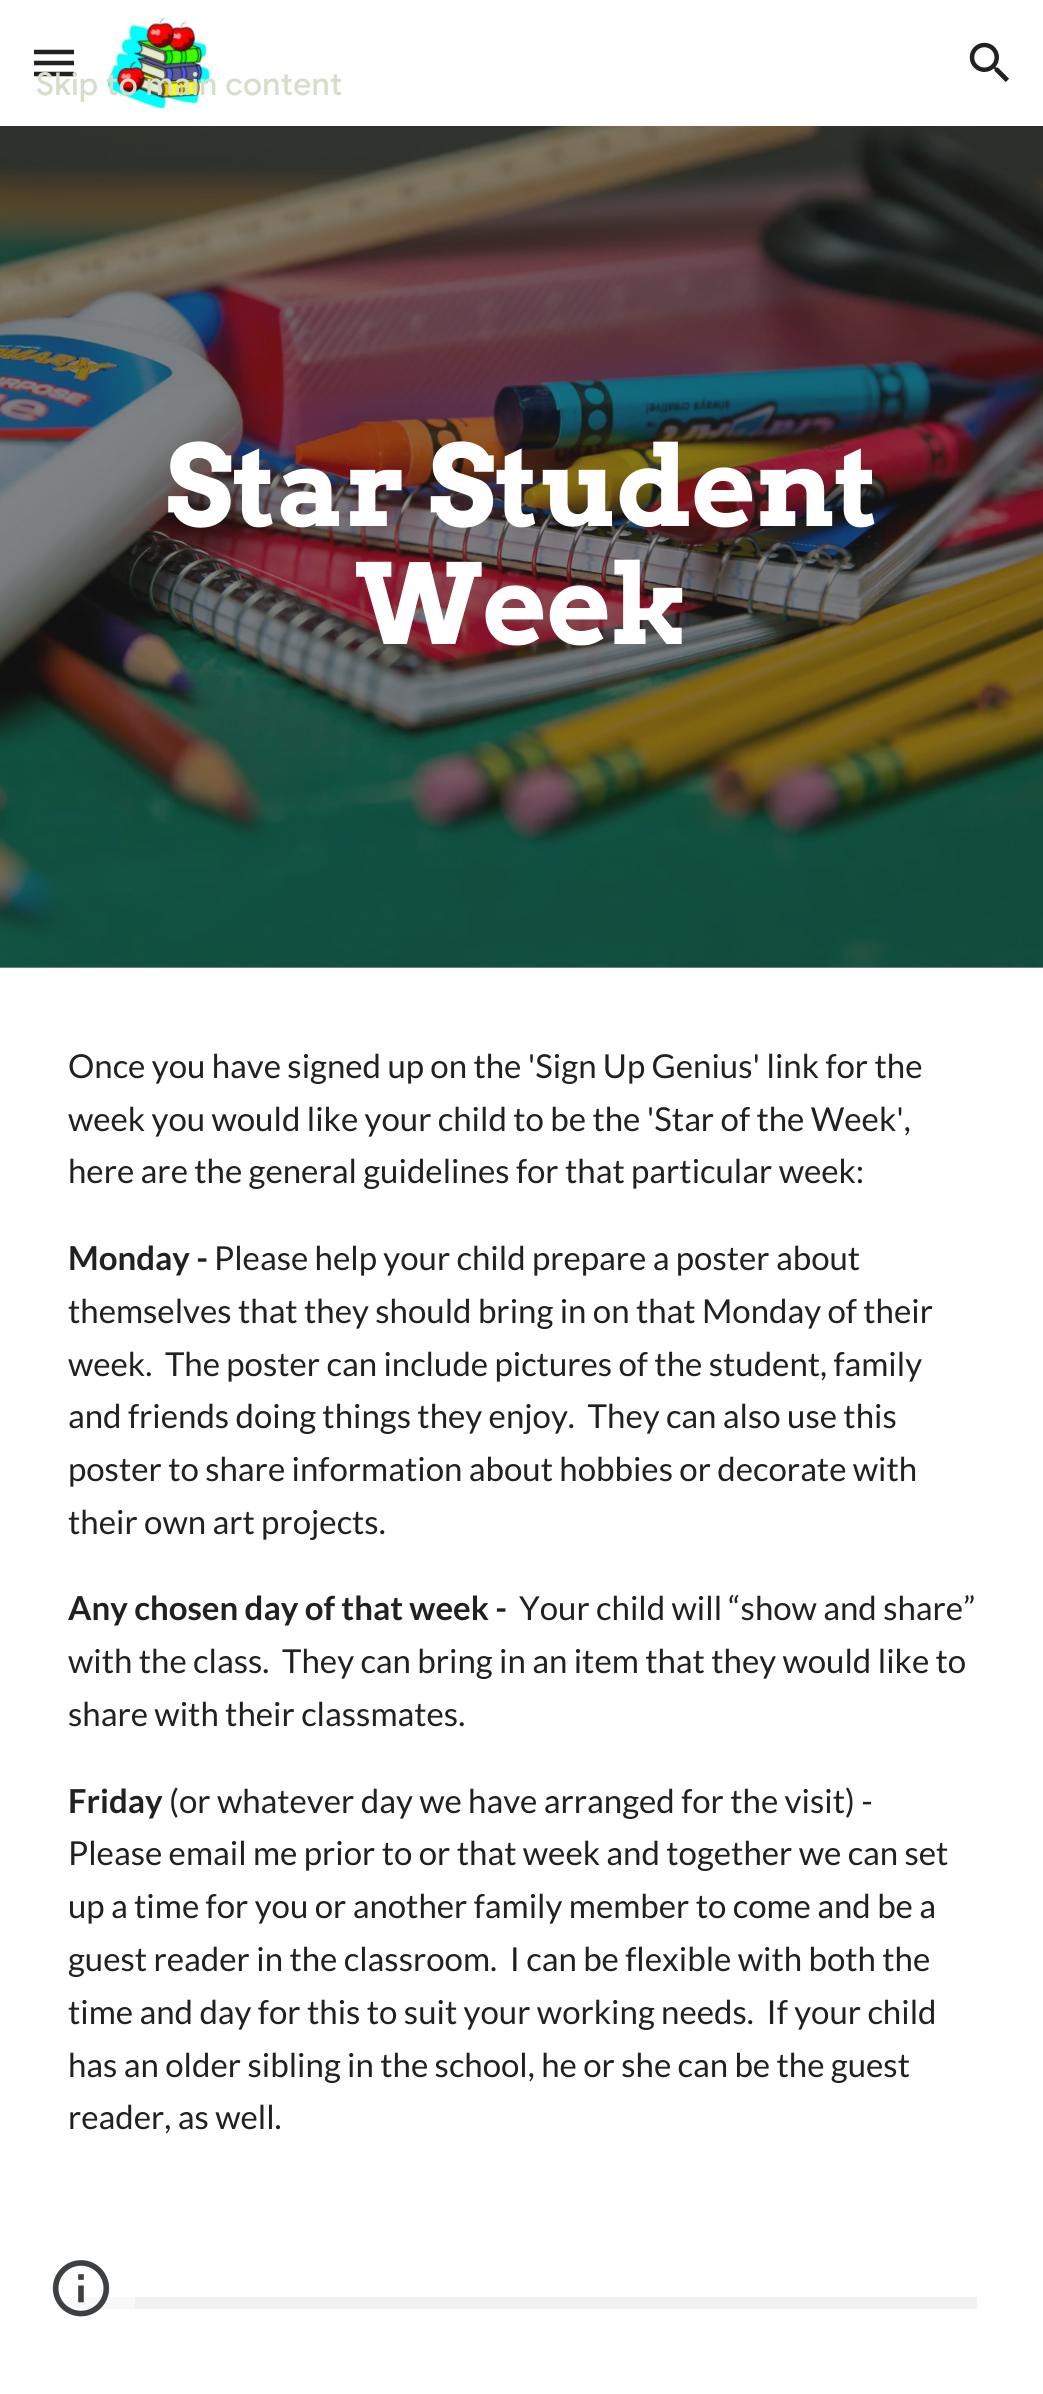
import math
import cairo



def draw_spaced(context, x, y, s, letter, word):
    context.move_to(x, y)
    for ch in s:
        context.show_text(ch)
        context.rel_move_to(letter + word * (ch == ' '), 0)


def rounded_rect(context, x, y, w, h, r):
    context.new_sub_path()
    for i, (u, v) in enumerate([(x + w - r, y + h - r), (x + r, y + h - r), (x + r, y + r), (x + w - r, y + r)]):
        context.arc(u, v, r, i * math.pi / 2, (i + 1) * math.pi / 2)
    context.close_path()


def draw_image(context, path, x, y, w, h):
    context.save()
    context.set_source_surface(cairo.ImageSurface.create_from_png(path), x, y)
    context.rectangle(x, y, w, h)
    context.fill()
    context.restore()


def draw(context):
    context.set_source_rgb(1, 1, 1)
    context.paint()
    context.set_source_rgb(144 / 255, 144 / 255, 144 / 255)
    context.rectangle(0, 967, 1043, 1)
    context.fill()
    context.new_path()
    context.move_to(34, 52)
    context.line_to(74, 52)
    context.move_to(34, 63)
    context.line_to(74, 63)
    context.move_to(34, 74)
    context.line_to(74, 74)
    context.set_source_rgb(33 / 255, 33 / 255, 33 / 255)
    context.set_line_width(4.5)
    context.stroke()
    draw_image(context, "images/1.png", 108, 18, 102, 91)
    draw_image(context, "images/2.png", 969, 42, 40, 40)
    draw_image(context, "images/3.png", 0, 126, 1043, 842)
    context.set_source_rgb(240 / 255, 240 / 255, 240 / 255)
    context.rectangle(68, 2297, 909, 12)
    context.fill()
    context.set_source_rgba(1, 1, 1, 0.5)
    rounded_rect(context, 27, 2250, 108, 108, 38)
    context.fill()
    draw_image(context, "images/4.png", 52, 2260, 58, 57)
    context.select_font_face("Google Sans Medium")
    context.set_font_size(31.5)
    context.set_source_rgb(213 / 255, 222 / 255, 202 / 255)
    draw_spaced(context, 36, 95, "Skip to main content", 0.3, 0)
    context.select_font_face("Arvo", cairo.FontSlant.NORMAL, cairo.FontWeight.BOLD)
    context.set_font_size(111)
    context.set_source_rgb(1, 1, 1)
    context.move_to(166, 526)
    context.show_text("Star Student")
    context.move_to(355, 644)
    context.show_text("Week")
    context.select_font_face("Lato")
    context.set_font_size(33)
    context.set_source_rgb(33 / 255, 33 / 255, 33 / 255)
    context.move_to(68, 1078)
    context.show_text("Once you have signed up on the 'Sign Up Genius' link for the")
    context.move_to(68, 1131)
    context.show_text("week you would like your child to be the 'Star of the Week',")
    context.move_to(68, 1183)
    context.show_text("here are the general guidelines for that particular week:")
    context.select_font_face("Lato", cairo.FontSlant.NORMAL, cairo.FontWeight.BOLD)
    context.move_to(68, 1270)
    context.show_text("Monday -")
    context.select_font_face("Lato")
    context.move_to(214, 1270)
    context.show_text("Please help your child prepare a poster about")
    context.move_to(68, 1323)
    context.show_text("themselves that they should bring in on that Monday of their")
    context.move_to(68, 1376)
    context.show_text("week.  The poster can include pictures of the student, family")
    context.move_to(68, 1428)
    context.show_text("and friends doing things they enjoy.  They can also use this")
    context.move_to(68, 1481)
    context.show_text("poster to share information about hobbies or decorate with")
    context.move_to(68, 1534)
    context.show_text("their own art projects.")
    context.select_font_face("Lato", cairo.FontSlant.NORMAL, cairo.FontWeight.BOLD)
    context.move_to(68, 1620)
    context.show_text("Any chosen day of that week -")
    context.select_font_face("Lato")
    context.move_to(519, 1620)
    context.show_text("Your child will “show and share”")
    context.move_to(68, 1673)
    context.show_text("with the class.  They can bring in an item that they would like to")
    context.move_to(68, 1726)
    context.show_text("share with their classmates.")
    context.select_font_face("Lato", cairo.FontSlant.NORMAL, cairo.FontWeight.BOLD)
    context.move_to(68, 1813)
    context.show_text("Friday")
    context.select_font_face("Lato")
    context.move_to(169, 1813)
    context.show_text("(or whatever day we have arranged for the visit) -")
    context.move_to(68, 1865)
    context.show_text("Please email me prior to or that week and together we can set")
    context.move_to(68, 1918)
    context.show_text("up a time for you or another family member to come and be a")
    context.move_to(68, 1971)
    context.show_text("guest reader in the classroom.  I can be flexible with both the")
    context.move_to(68, 2024)
    context.show_text("time and day for this to suit your working needs.  If your child")
    context.move_to(68, 2077)
    context.show_text("has an older sibling in the school, he or she can be the guest")
    context.move_to(68, 2129)
    context.show_text("reader, as well.")


surface = cairo.ImageSurface(cairo.Format.RGB24, 1043, 2394)
context = cairo.Context(surface)
options = cairo.FontOptions()
options.set_hint_metrics(cairo.HintMetrics.OFF)
options.set_hint_style(cairo.HintStyle.NONE)
context.set_font_options(options)
context.set_miter_limit(4)
draw(context)
surface.write_to_png("out.png")
